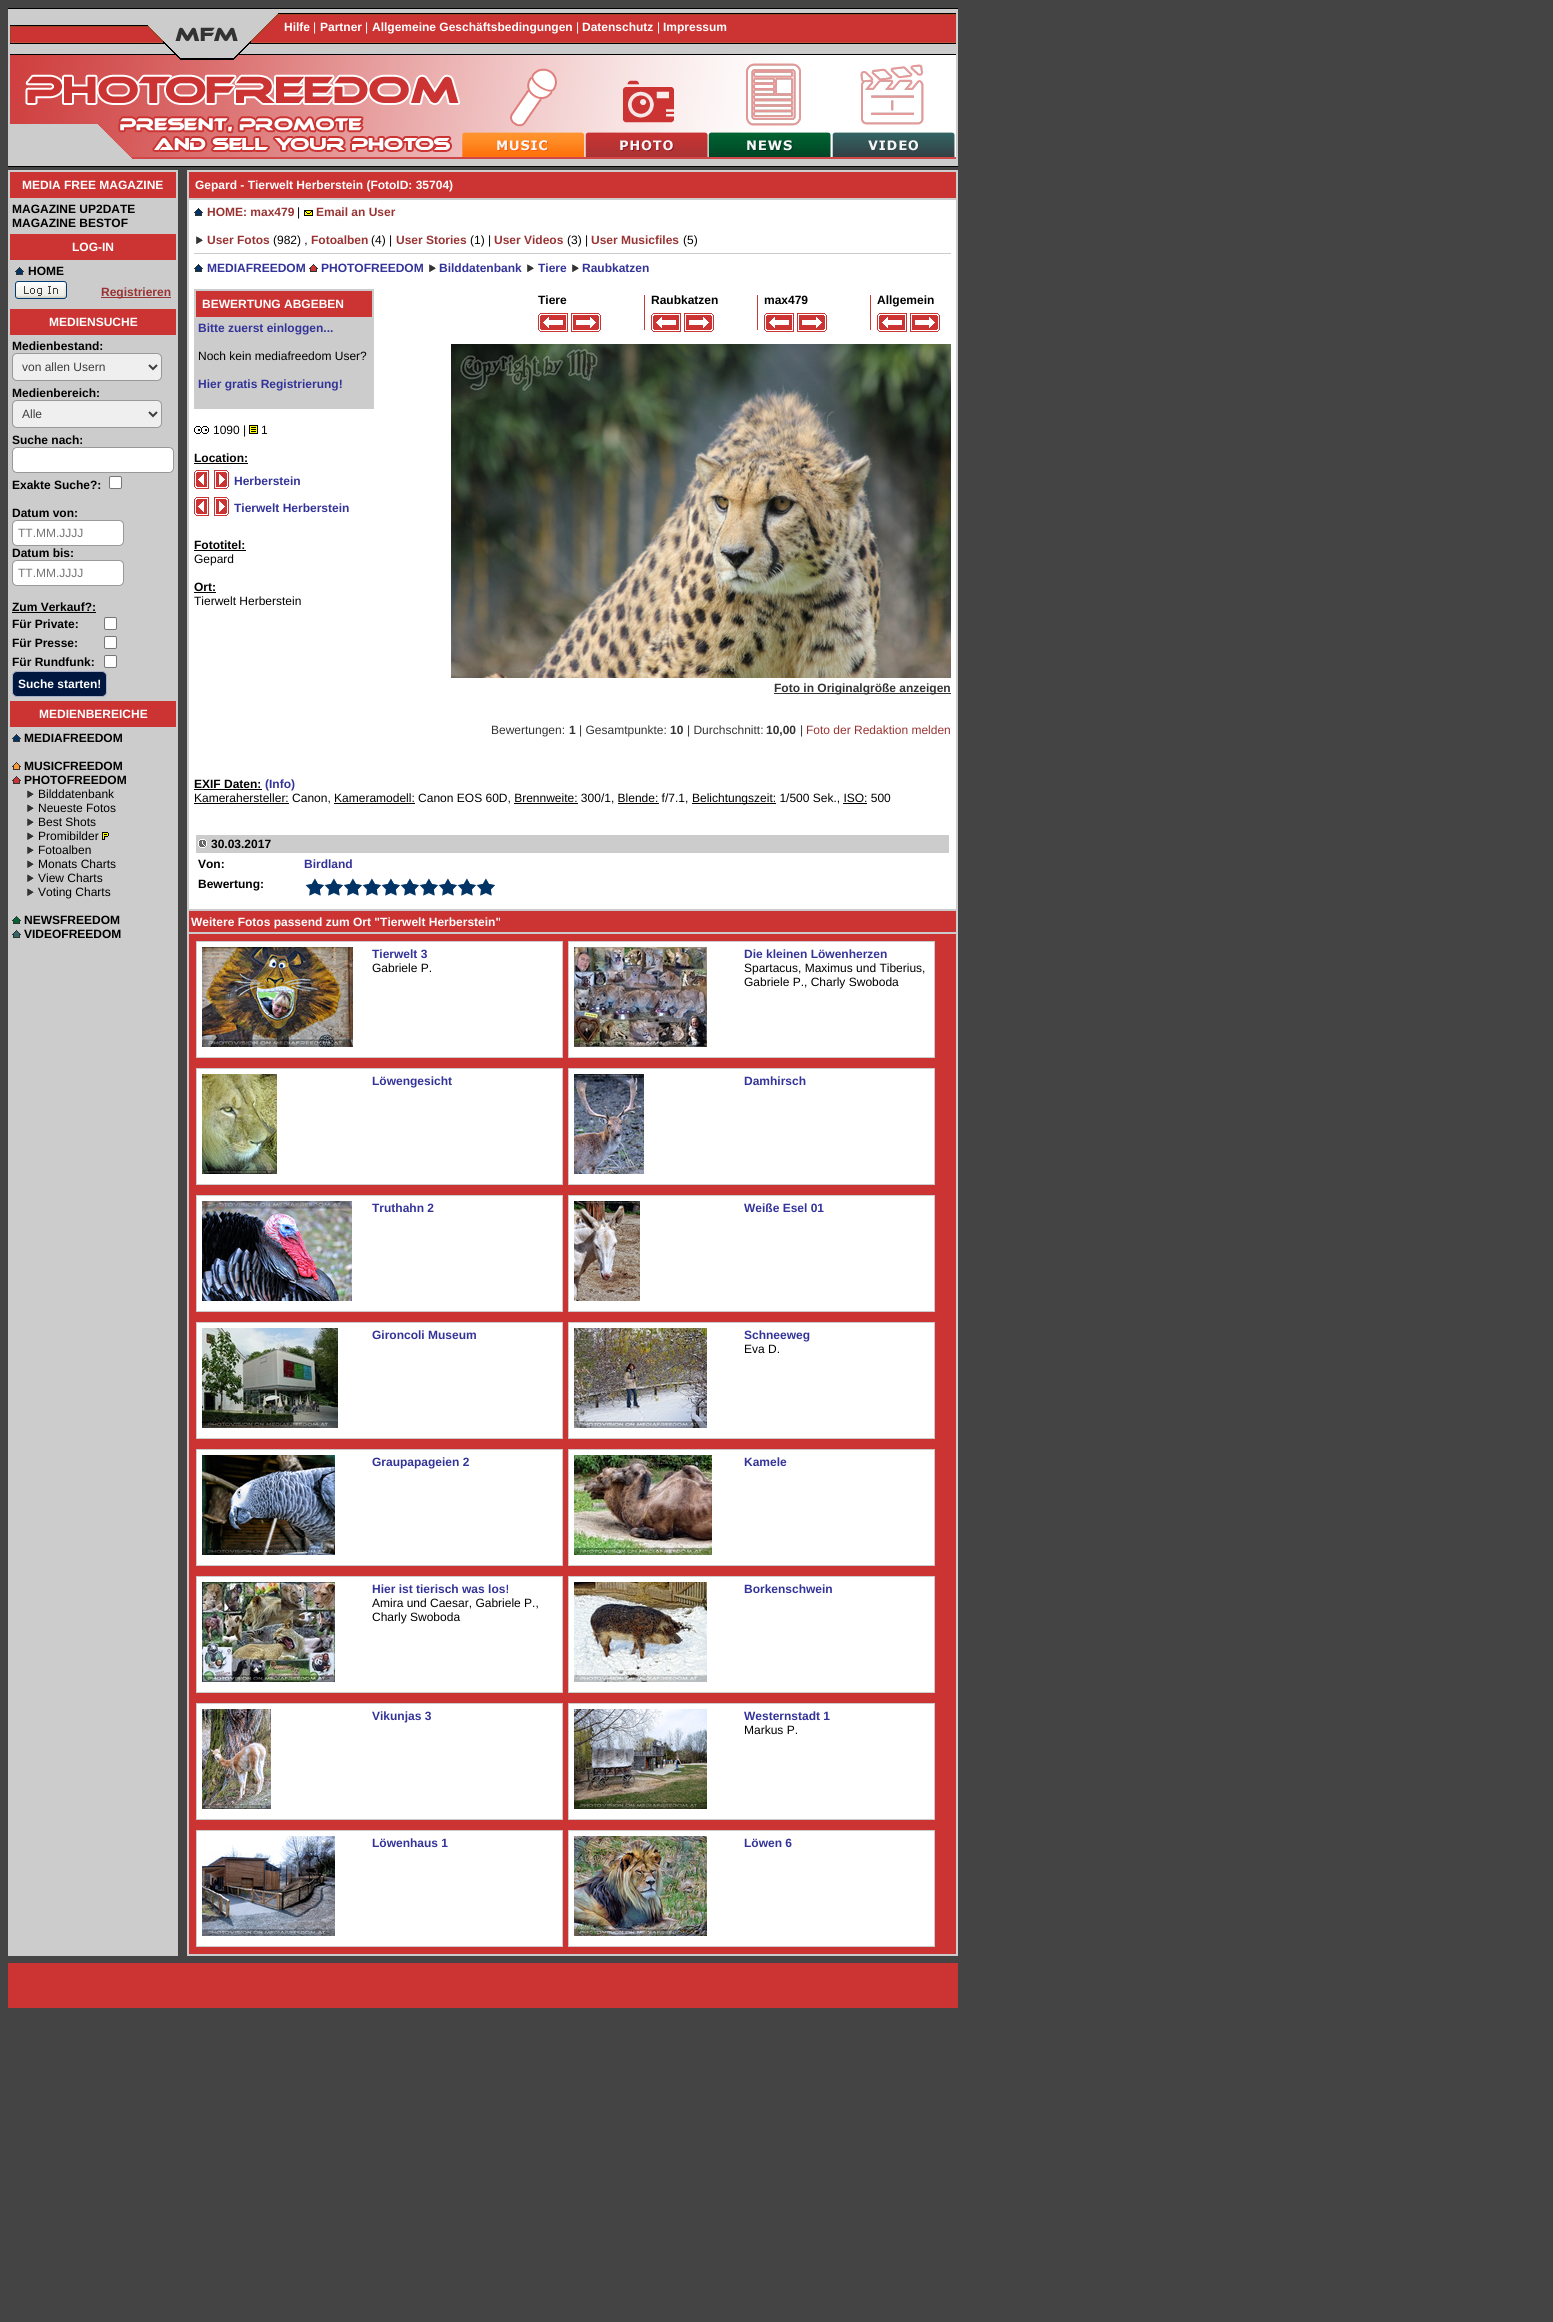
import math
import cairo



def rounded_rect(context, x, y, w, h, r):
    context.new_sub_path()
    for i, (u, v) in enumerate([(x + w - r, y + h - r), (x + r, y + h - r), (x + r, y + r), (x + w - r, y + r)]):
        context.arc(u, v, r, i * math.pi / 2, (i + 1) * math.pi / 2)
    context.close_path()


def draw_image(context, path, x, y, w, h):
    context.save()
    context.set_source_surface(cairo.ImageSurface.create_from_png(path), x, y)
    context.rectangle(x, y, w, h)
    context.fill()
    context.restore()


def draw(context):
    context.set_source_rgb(68 / 255, 68 / 255, 68 / 255)
    context.paint()
    draw_image(context, "images/1.png", 8, 8, 130, 33)
    draw_image(context, "images/2.png", 138, 8, 146, 33)
    draw_image(context, "images/3.png", 284, 8, 674, 33)
    draw_image(context, "images/4.png", 8, 41, 130, 126)
    draw_image(context, "images/5.png", 138, 41, 146, 126)
    draw_image(context, "images/6.png", 284, 41, 178, 126)
    draw_image(context, "images/7.png", 462, 41, 122, 126)
    draw_image(context, "images/8.png", 584, 41, 124, 126)
    draw_image(context, "images/9.png", 708, 41, 123, 126)
    draw_image(context, "images/10.png", 831, 41, 127, 126)
    context.set_source_rgb(204 / 255, 204 / 255, 204 / 255)
    context.rectangle(8, 170, 170, 1786)
    context.fill()
    context.set_source_rgb(204 / 255, 51 / 255, 51 / 255)
    context.rectangle(10, 172, 166, 26)
    context.fill()
    context.rectangle(10, 234, 166, 26)
    context.fill()
    draw_image(context, "images/11.png", 15, 267, 9, 8)
    draw_image(context, "images/12.png", 15, 281, 52, 18)
    context.set_source_rgb(153 / 255, 51 / 255, 51 / 255)
    context.rectangle(101, 297, 70, 1)
    context.fill()
    context.set_source_rgb(204 / 255, 51 / 255, 51 / 255)
    context.rectangle(10, 309, 166, 26)
    context.fill()
    context.set_source_rgb(239 / 255, 239 / 255, 239 / 255)
    rounded_rect(context, 12.5, 353.5, 149, 27, 4.5)
    context.fill_preserve()
    context.set_source_rgb(153 / 255, 153 / 255, 153 / 255)
    context.set_line_width(1)
    context.stroke()
    context.new_path()
    context.move_to(149, 365)
    context.line_to(153, 369)
    context.line_to(157, 365)
    context.set_source_rgb(61 / 255, 61 / 255, 61 / 255)
    context.set_line_width(2)
    context.stroke()
    context.set_source_rgb(239 / 255, 239 / 255, 239 / 255)
    rounded_rect(context, 12.5, 400.5, 149, 27, 4.5)
    context.fill_preserve()
    context.set_source_rgb(153 / 255, 153 / 255, 153 / 255)
    context.set_line_width(1)
    context.stroke()
    context.new_path()
    context.move_to(149, 412)
    context.line_to(153, 416)
    context.line_to(157, 412)
    context.set_source_rgb(61 / 255, 61 / 255, 61 / 255)
    context.set_line_width(2)
    context.stroke()
    context.set_source_rgb(1, 1, 1)
    rounded_rect(context, 12.5, 447.5, 161, 25, 4.5)
    context.fill_preserve()
    context.set_source_rgb(153 / 255, 153 / 255, 153 / 255)
    context.set_line_width(1)
    context.stroke()
    context.set_source_rgb(1, 1, 1)
    rounded_rect(context, 109.5, 476.5, 12, 12, 1.5)
    context.fill_preserve()
    context.set_source_rgb(118 / 255, 118 / 255, 118 / 255)
    context.stroke()
    context.set_source_rgb(1, 1, 1)
    rounded_rect(context, 12.5, 520.5, 111, 25, 4.5)
    context.fill_preserve()
    context.set_source_rgb(153 / 255, 153 / 255, 153 / 255)
    context.stroke()
    context.set_source_rgb(1, 1, 1)
    rounded_rect(context, 12.5, 560.5, 111, 25, 4.5)
    context.fill_preserve()
    context.set_source_rgb(153 / 255, 153 / 255, 153 / 255)
    context.stroke()
    context.set_source_rgb(0, 0, 0)
    context.rectangle(12, 612, 84, 1)
    context.fill()
    context.set_source_rgb(1, 1, 1)
    rounded_rect(context, 104.5, 617.5, 12, 12, 1.5)
    context.fill_preserve()
    context.set_source_rgb(118 / 255, 118 / 255, 118 / 255)
    context.stroke()
    context.set_source_rgb(1, 1, 1)
    rounded_rect(context, 104.5, 636.5, 12, 12, 1.5)
    context.fill_preserve()
    context.set_source_rgb(118 / 255, 118 / 255, 118 / 255)
    context.stroke()
    context.set_source_rgb(1, 1, 1)
    rounded_rect(context, 104.5, 655.5, 12, 12, 1.5)
    context.fill_preserve()
    context.set_source_rgb(118 / 255, 118 / 255, 118 / 255)
    context.stroke()
    context.set_source_rgb(0, 23 / 255, 63 / 255)
    rounded_rect(context, 12.5, 671.5, 94, 25, 4.5)
    context.fill_preserve()
    context.set_source_rgb(167 / 255, 174 / 255, 199 / 255)
    context.stroke()
    context.set_source_rgb(204 / 255, 51 / 255, 51 / 255)
    context.rectangle(10, 701, 166, 26)
    context.fill()
    draw_image(context, "images/11.png", 12, 734, 9, 8)
    draw_image(context, "images/13.png", 12, 762, 9, 8)
    draw_image(context, "images/14.png", 12, 776, 9, 8)
    draw_image(context, "images/15.png", 27, 790, 7, 8)
    draw_image(context, "images/15.png", 27, 804, 7, 8)
    draw_image(context, "images/15.png", 27, 818, 7, 8)
    draw_image(context, "images/15.png", 27, 832, 7, 8)
    draw_image(context, "images/16.png", 102, 832, 7, 8)
    draw_image(context, "images/15.png", 27, 846, 7, 8)
    draw_image(context, "images/15.png", 27, 860, 7, 8)
    draw_image(context, "images/15.png", 27, 874, 7, 8)
    draw_image(context, "images/15.png", 27, 888, 7, 8)
    draw_image(context, "images/17.png", 12, 916, 9, 8)
    draw_image(context, "images/18.png", 12, 930, 9, 8)
    context.set_source_rgb(204 / 255, 204 / 255, 204 / 255)
    context.rectangle(187, 170, 771, 1786)
    context.fill()
    context.set_source_rgb(204 / 255, 51 / 255, 51 / 255)
    context.rectangle(189, 172, 767, 26)
    context.fill()
    context.set_source_rgb(1, 1, 1)
    context.rectangle(189, 200, 767, 709)
    context.fill()
    draw_image(context, "images/19.png", 194, 208, 9, 8)
    draw_image(context, "images/20.png", 304, 210, 9, 6)
    draw_image(context, "images/21.png", 196, 236, 7, 8)
    context.set_source_rgb(204 / 255, 204 / 255, 204 / 255)
    context.rectangle(194, 253, 757, 1)
    context.fill()
    draw_image(context, "images/19.png", 194, 264, 9, 8)
    draw_image(context, "images/22.png", 309, 264, 9, 8)
    draw_image(context, "images/21.png", 429, 264, 7, 8)
    draw_image(context, "images/21.png", 527, 264, 7, 8)
    draw_image(context, "images/21.png", 572, 264, 7, 8)
    context.rectangle(194, 289, 180, 120)
    context.fill()
    context.set_source_rgb(204 / 255, 51 / 255, 51 / 255)
    context.rectangle(196, 291, 176, 26)
    context.fill()
    draw_image(context, "images/23.png", 194, 426, 15, 8)
    draw_image(context, "images/24.png", 249, 425, 9, 9)
    context.set_source_rgb(0, 0, 0)
    context.rectangle(194, 463, 54, 1)
    context.fill()
    draw_image(context, "images/25.png", 194, 470, 15, 19)
    draw_image(context, "images/26.png", 214, 470, 15, 19)
    draw_image(context, "images/25.png", 194, 497, 15, 19)
    draw_image(context, "images/26.png", 214, 497, 15, 19)
    context.rectangle(194, 550, 52, 1)
    context.fill()
    context.rectangle(194, 592, 22, 1)
    context.fill()
    context.set_source_rgb(207 / 255, 57 / 255, 51 / 255)
    context.rectangle(644, 295, 1, 35)
    context.fill()
    context.rectangle(757, 295, 1, 35)
    context.fill()
    context.rectangle(870, 295, 1, 35)
    context.fill()
    draw_image(context, "images/27.png", 538, 313, 30, 19)
    draw_image(context, "images/28.png", 571, 313, 30, 19)
    draw_image(context, "images/27.png", 651, 313, 30, 19)
    draw_image(context, "images/28.png", 684, 313, 30, 19)
    draw_image(context, "images/27.png", 764, 313, 30, 19)
    draw_image(context, "images/28.png", 797, 313, 30, 19)
    draw_image(context, "images/27.png", 877, 313, 30, 19)
    draw_image(context, "images/28.png", 910, 313, 30, 19)
    draw_image(context, "images/29.png", 451, 344, 500, 334)
    context.set_source_rgb(51 / 255, 51 / 255, 51 / 255)
    context.rectangle(774, 693, 177, 1)
    context.fill()
    context.set_source_rgb(0, 0, 0)
    context.rectangle(194, 789, 68, 1)
    context.fill()
    context.rectangle(194, 803, 95, 1)
    context.fill()
    context.rectangle(692, 803, 84, 1)
    context.fill()
    context.rectangle(334, 803, 81, 1)
    context.fill()
    context.rectangle(514, 803, 64, 1)
    context.fill()
    context.rectangle(618, 803, 41, 1)
    context.fill()
    context.rectangle(843, 803, 24, 1)
    context.fill()
    context.set_source_rgb(204 / 255, 204 / 255, 204 / 255)
    context.rectangle(196, 835, 753, 18)
    context.fill()
    draw_image(context, "images/30.png", 198, 839, 9, 9)
    draw_image(context, "images/31.png", 305, 878, 191, 18)
    context.set_source_rgb(204 / 255, 51 / 255, 51 / 255)
    context.rectangle(189, 911, 767, 21)
    context.fill()
    context.rectangle(189, 934, 767, 1020)
    context.fill()
    context.set_source_rgb(1, 1, 1)
    context.rectangle(196.5, 941.5, 366, 116)
    context.fill_preserve()
    context.set_source_rgb(204 / 255, 204 / 255, 204 / 255)
    context.stroke()
    draw_image(context, "images/32.png", 202, 947, 151, 100)
    context.set_source_rgb(1, 1, 1)
    context.rectangle(568.5, 941.5, 366, 116)
    context.fill_preserve()
    context.set_source_rgb(204 / 255, 204 / 255, 204 / 255)
    context.stroke()
    draw_image(context, "images/33.png", 574, 947, 133, 100)
    context.set_source_rgb(1, 1, 1)
    context.rectangle(196.5, 1068.5, 366, 116)
    context.fill_preserve()
    context.set_source_rgb(204 / 255, 204 / 255, 204 / 255)
    context.stroke()
    draw_image(context, "images/34.png", 202, 1074, 75, 100)
    context.set_source_rgb(1, 1, 1)
    context.rectangle(568.5, 1068.5, 366, 116)
    context.fill_preserve()
    context.set_source_rgb(204 / 255, 204 / 255, 204 / 255)
    context.stroke()
    draw_image(context, "images/35.png", 574, 1074, 70, 100)
    context.set_source_rgb(1, 1, 1)
    context.rectangle(196.5, 1195.5, 366, 116)
    context.fill_preserve()
    context.set_source_rgb(204 / 255, 204 / 255, 204 / 255)
    context.stroke()
    draw_image(context, "images/36.png", 202, 1201, 150, 100)
    context.set_source_rgb(1, 1, 1)
    context.rectangle(568.5, 1195.5, 366, 116)
    context.fill_preserve()
    context.set_source_rgb(204 / 255, 204 / 255, 204 / 255)
    context.stroke()
    draw_image(context, "images/37.png", 574, 1201, 66, 100)
    context.set_source_rgb(1, 1, 1)
    context.rectangle(196.5, 1322.5, 366, 116)
    context.fill_preserve()
    context.set_source_rgb(204 / 255, 204 / 255, 204 / 255)
    context.stroke()
    draw_image(context, "images/38.png", 202, 1328, 136, 100)
    context.set_source_rgb(1, 1, 1)
    context.rectangle(568.5, 1322.5, 366, 116)
    context.fill_preserve()
    context.set_source_rgb(204 / 255, 204 / 255, 204 / 255)
    context.stroke()
    draw_image(context, "images/39.png", 574, 1328, 133, 100)
    context.set_source_rgb(1, 1, 1)
    context.rectangle(196.5, 1449.5, 366, 116)
    context.fill_preserve()
    context.set_source_rgb(204 / 255, 204 / 255, 204 / 255)
    context.stroke()
    draw_image(context, "images/40.png", 202, 1455, 133, 100)
    context.set_source_rgb(1, 1, 1)
    context.rectangle(568.5, 1449.5, 366, 116)
    context.fill_preserve()
    context.set_source_rgb(204 / 255, 204 / 255, 204 / 255)
    context.stroke()
    draw_image(context, "images/41.png", 574, 1455, 138, 100)
    context.set_source_rgb(1, 1, 1)
    context.rectangle(196.5, 1576.5, 366, 116)
    context.fill_preserve()
    context.set_source_rgb(204 / 255, 204 / 255, 204 / 255)
    context.stroke()
    draw_image(context, "images/42.png", 202, 1582, 133, 100)
    context.set_source_rgb(1, 1, 1)
    context.rectangle(568.5, 1576.5, 366, 116)
    context.fill_preserve()
    context.set_source_rgb(204 / 255, 204 / 255, 204 / 255)
    context.stroke()
    draw_image(context, "images/43.png", 574, 1582, 133, 100)
    context.set_source_rgb(1, 1, 1)
    context.rectangle(196.5, 1703.5, 366, 116)
    context.fill_preserve()
    context.set_source_rgb(204 / 255, 204 / 255, 204 / 255)
    context.stroke()
    draw_image(context, "images/44.png", 202, 1709, 69, 100)
    context.set_source_rgb(1, 1, 1)
    context.rectangle(568.5, 1703.5, 366, 116)
    context.fill_preserve()
    context.set_source_rgb(204 / 255, 204 / 255, 204 / 255)
    context.stroke()
    draw_image(context, "images/45.png", 574, 1709, 133, 100)
    context.set_source_rgb(1, 1, 1)
    context.rectangle(196.5, 1830.5, 366, 116)
    context.fill_preserve()
    context.set_source_rgb(204 / 255, 204 / 255, 204 / 255)
    context.stroke()
    draw_image(context, "images/46.png", 202, 1836, 133, 100)
    context.set_source_rgb(1, 1, 1)
    context.rectangle(568.5, 1830.5, 366, 116)
    context.fill_preserve()
    context.set_source_rgb(204 / 255, 204 / 255, 204 / 255)
    context.stroke()
    draw_image(context, "images/47.png", 574, 1836, 133, 100)
    context.set_source_rgb(204 / 255, 51 / 255, 51 / 255)
    context.rectangle(8, 1963, 950, 45)
    context.fill()
    context.select_font_face("Liberation Sans", cairo.FontSlant.NORMAL, cairo.FontWeight.BOLD)
    context.set_font_size(12)
    context.set_source_rgb(1, 1, 1)
    context.move_to(284, 31)
    context.show_text("Hilfe")
    context.select_font_face("Liberation Sans")
    context.move_to(313, 31)
    context.show_text("|")
    context.select_font_face("Liberation Sans", cairo.FontSlant.NORMAL, cairo.FontWeight.BOLD)
    context.move_to(320, 31)
    context.show_text("Partner")
    context.select_font_face("Liberation Sans")
    context.move_to(365, 31)
    context.show_text("|")
    context.select_font_face("Liberation Sans", cairo.FontSlant.NORMAL, cairo.FontWeight.BOLD)
    context.move_to(372, 31)
    context.show_text("Allgemeine Geschäftsbedingungen")
    context.select_font_face("Liberation Sans")
    context.move_to(576, 31)
    context.show_text("|")
    context.select_font_face("Liberation Sans", cairo.FontSlant.NORMAL, cairo.FontWeight.BOLD)
    context.move_to(582, 31)
    context.show_text("Datenschutz")
    context.select_font_face("Liberation Sans")
    context.move_to(657, 31)
    context.show_text("|")
    context.select_font_face("Liberation Sans", cairo.FontSlant.NORMAL, cairo.FontWeight.BOLD)
    context.move_to(663, 31)
    context.show_text("Impressum")
    context.move_to(22, 189)
    context.show_text("MEDIA FREE MAGAZINE")
    context.set_source_rgb(0, 0, 0)
    context.move_to(12, 213)
    context.show_text("MAGAZINE UP2DATE")
    context.move_to(12, 227)
    context.show_text("MAGAZINE BESTOF")
    context.set_source_rgb(1, 1, 1)
    context.move_to(72, 251)
    context.show_text("LOG-IN")
    context.set_source_rgb(0, 0, 0)
    context.move_to(28, 275)
    context.show_text("HOME")
    context.set_source_rgb(153 / 255, 51 / 255, 51 / 255)
    context.move_to(101, 296)
    context.show_text("Registrieren")
    context.set_source_rgb(1, 1, 1)
    context.move_to(49, 326)
    context.show_text("MEDIENSUCHE")
    context.set_source_rgb(0, 0, 0)
    context.move_to(12, 350)
    context.show_text("Medienbestand:")
    context.select_font_face("Liberation Sans")
    context.set_source_rgb(61 / 255, 61 / 255, 61 / 255)
    context.move_to(22, 371)
    context.show_text("von allen Usern")
    context.select_font_face("Liberation Sans", cairo.FontSlant.NORMAL, cairo.FontWeight.BOLD)
    context.set_source_rgb(0, 0, 0)
    context.move_to(12, 397)
    context.show_text("Medienbereich:")
    context.select_font_face("Liberation Sans")
    context.set_source_rgb(61 / 255, 61 / 255, 61 / 255)
    context.move_to(22, 418)
    context.show_text("Alle")
    context.select_font_face("Liberation Sans", cairo.FontSlant.NORMAL, cairo.FontWeight.BOLD)
    context.set_source_rgb(0, 0, 0)
    context.move_to(12, 444)
    context.show_text("Suche nach:")
    context.move_to(12, 489)
    context.show_text("Exakte Suche?:")
    context.move_to(12, 517)
    context.show_text("Datum von:")
    context.select_font_face("Liberation Sans")
    context.set_source_rgb(117 / 255, 117 / 255, 117 / 255)
    context.move_to(18, 537)
    context.show_text("TT.MM.JJJJ")
    context.select_font_face("Liberation Sans", cairo.FontSlant.NORMAL, cairo.FontWeight.BOLD)
    context.set_source_rgb(0, 0, 0)
    context.move_to(12, 557)
    context.show_text("Datum bis:")
    context.select_font_face("Liberation Sans")
    context.set_source_rgb(117 / 255, 117 / 255, 117 / 255)
    context.move_to(18, 577)
    context.show_text("TT.MM.JJJJ")
    context.select_font_face("Liberation Sans", cairo.FontSlant.NORMAL, cairo.FontWeight.BOLD)
    context.set_source_rgb(0, 0, 0)
    context.move_to(12, 611)
    context.show_text("Zum Verkauf?:")
    context.move_to(12, 628)
    context.show_text("Für Private:")
    context.move_to(12, 647)
    context.show_text("Für Presse:")
    context.move_to(12, 666)
    context.show_text("Für Rundfunk:")
    context.set_source_rgb(1, 1, 1)
    context.move_to(18, 688)
    context.show_text("Suche starten!")
    context.move_to(39, 718)
    context.show_text("MEDIENBEREICHE")
    context.set_source_rgb(0, 0, 0)
    context.move_to(24, 742)
    context.show_text("MEDIAFREEDOM")
    context.move_to(24, 770)
    context.show_text("MUSICFREEDOM")
    context.move_to(24, 784)
    context.show_text("PHOTOFREEDOM")
    context.select_font_face("Liberation Sans")
    context.move_to(38, 798)
    context.show_text("Bilddatenbank")
    context.move_to(38, 812)
    context.show_text("Neueste Fotos")
    context.move_to(38, 826)
    context.show_text("Best Shots")
    context.move_to(38, 840)
    context.show_text("Promibilder")
    context.move_to(38, 854)
    context.show_text("Fotoalben")
    context.move_to(38, 868)
    context.show_text("Monats Charts")
    context.move_to(38, 882)
    context.show_text("View Charts")
    context.move_to(38, 896)
    context.show_text("Voting Charts")
    context.select_font_face("Liberation Sans", cairo.FontSlant.NORMAL, cairo.FontWeight.BOLD)
    context.move_to(24, 924)
    context.show_text("NEWSFREEDOM")
    context.move_to(24, 938)
    context.show_text("VIDEOFREEDOM")
    context.set_source_rgb(1, 1, 1)
    context.move_to(195, 189)
    context.show_text("Gepard - Tierwelt Herberstein (FotoID: 35704)")
    context.set_source_rgb(153 / 255, 51 / 255, 51 / 255)
    context.move_to(207, 216)
    context.show_text("HOME: max479")
    context.select_font_face("Liberation Sans")
    context.set_source_rgb(0, 0, 0)
    context.move_to(297, 216)
    context.show_text("|")
    context.select_font_face("Liberation Sans", cairo.FontSlant.NORMAL, cairo.FontWeight.BOLD)
    context.set_source_rgb(153 / 255, 51 / 255, 51 / 255)
    context.move_to(316, 216)
    context.show_text("Email an User")
    context.move_to(207, 244)
    context.show_text("User Fotos")
    context.select_font_face("Liberation Sans")
    context.set_source_rgb(0, 0, 0)
    context.move_to(273, 244)
    context.show_text("(982) ,")
    context.select_font_face("Liberation Sans", cairo.FontSlant.NORMAL, cairo.FontWeight.BOLD)
    context.set_source_rgb(153 / 255, 51 / 255, 51 / 255)
    context.move_to(311, 244)
    context.show_text("Fotoalben")
    context.select_font_face("Liberation Sans")
    context.set_source_rgb(0, 0, 0)
    context.move_to(371, 244)
    context.show_text("(4) |")
    context.select_font_face("Liberation Sans", cairo.FontSlant.NORMAL, cairo.FontWeight.BOLD)
    context.set_source_rgb(153 / 255, 51 / 255, 51 / 255)
    context.move_to(396, 244)
    context.show_text("User Stories")
    context.select_font_face("Liberation Sans")
    context.set_source_rgb(0, 0, 0)
    context.move_to(470, 244)
    context.show_text("(1) |")
    context.select_font_face("Liberation Sans", cairo.FontSlant.NORMAL, cairo.FontWeight.BOLD)
    context.set_source_rgb(153 / 255, 51 / 255, 51 / 255)
    context.move_to(494, 244)
    context.show_text("User Videos")
    context.select_font_face("Liberation Sans")
    context.set_source_rgb(0, 0, 0)
    context.move_to(567, 244)
    context.show_text("(3) |")
    context.select_font_face("Liberation Sans", cairo.FontSlant.NORMAL, cairo.FontWeight.BOLD)
    context.set_source_rgb(153 / 255, 51 / 255, 51 / 255)
    context.move_to(591, 244)
    context.show_text("User Musicfiles")
    context.select_font_face("Liberation Sans")
    context.set_source_rgb(0, 0, 0)
    context.move_to(683, 244)
    context.show_text("(5)")
    context.select_font_face("Liberation Sans", cairo.FontSlant.NORMAL, cairo.FontWeight.BOLD)
    context.set_source_rgb(51 / 255, 51 / 255, 153 / 255)
    context.move_to(207, 272)
    context.show_text("MEDIAFREEDOM")
    context.move_to(321, 272)
    context.show_text("PHOTOFREEDOM")
    context.move_to(439, 272)
    context.show_text("Bilddatenbank")
    context.move_to(538, 272)
    context.show_text("Tiere")
    context.move_to(582, 272)
    context.show_text("Raubkatzen")
    context.set_source_rgb(1, 1, 1)
    context.move_to(202, 308)
    context.show_text("BEWERTUNG ABGEBEN")
    context.set_source_rgb(51 / 255, 51 / 255, 153 / 255)
    context.move_to(198, 332)
    context.show_text("Bitte zuerst einloggen...")
    context.select_font_face("Liberation Sans")
    context.set_source_rgb(0, 0, 0)
    context.move_to(198, 360)
    context.show_text("Noch kein mediafreedom User?")
    context.select_font_face("Liberation Sans", cairo.FontSlant.NORMAL, cairo.FontWeight.BOLD)
    context.set_source_rgb(51 / 255, 51 / 255, 153 / 255)
    context.move_to(198, 388)
    context.show_text("Hier gratis Registrierung!")
    context.select_font_face("Liberation Sans")
    context.set_source_rgb(0, 0, 0)
    context.move_to(213, 434)
    context.show_text("1090 |")
    context.move_to(261, 434)
    context.show_text("1")
    context.select_font_face("Liberation Sans", cairo.FontSlant.NORMAL, cairo.FontWeight.BOLD)
    context.move_to(194, 462)
    context.show_text("Location:")
    context.set_source_rgb(51 / 255, 51 / 255, 153 / 255)
    context.move_to(234, 485)
    context.show_text("Herberstein")
    context.move_to(234, 512)
    context.show_text("Tierwelt Herberstein")
    context.set_source_rgb(0, 0, 0)
    context.move_to(194, 549)
    context.show_text("Fototitel:")
    context.select_font_face("Liberation Sans")
    context.move_to(194, 563)
    context.show_text("Gepard")
    context.select_font_face("Liberation Sans", cairo.FontSlant.NORMAL, cairo.FontWeight.BOLD)
    context.move_to(194, 591)
    context.show_text("Ort:")
    context.select_font_face("Liberation Sans")
    context.move_to(194, 605)
    context.show_text("Tierwelt Herberstein")
    context.select_font_face("Liberation Sans", cairo.FontSlant.NORMAL, cairo.FontWeight.BOLD)
    context.move_to(538, 304)
    context.show_text("Tiere")
    context.move_to(651, 304)
    context.show_text("Raubkatzen")
    context.move_to(764, 304)
    context.show_text("max479")
    context.move_to(877, 304)
    context.show_text("Allgemein")
    context.set_source_rgb(51 / 255, 51 / 255, 51 / 255)
    context.move_to(774, 692)
    context.show_text("Foto in Originalgröße anzeigen")
    context.select_font_face("Liberation Sans")
    context.move_to(491, 734)
    context.show_text("Bewertungen:")
    context.select_font_face("Liberation Sans", cairo.FontSlant.NORMAL, cairo.FontWeight.BOLD)
    context.move_to(569, 734)
    context.show_text("1")
    context.select_font_face("Liberation Sans")
    context.move_to(579, 734)
    context.show_text("| Gesamtpunkte:")
    context.select_font_face("Liberation Sans", cairo.FontSlant.NORMAL, cairo.FontWeight.BOLD)
    context.move_to(670, 734)
    context.show_text("10")
    context.select_font_face("Liberation Sans")
    context.move_to(687, 734)
    context.show_text("| Durchschnitt:")
    context.select_font_face("Liberation Sans", cairo.FontSlant.NORMAL, cairo.FontWeight.BOLD)
    context.move_to(766, 734)
    context.show_text("10,00")
    context.select_font_face("Liberation Sans")
    context.move_to(800, 734)
    context.show_text("|")
    context.set_source_rgb(153 / 255, 51 / 255, 51 / 255)
    context.move_to(806, 734)
    context.show_text("Foto der Redaktion melden")
    context.select_font_face("Liberation Sans", cairo.FontSlant.NORMAL, cairo.FontWeight.BOLD)
    context.set_source_rgb(0, 0, 0)
    context.move_to(194, 788)
    context.show_text("EXIF Daten:")
    context.set_source_rgb(51 / 255, 51 / 255, 153 / 255)
    context.move_to(265, 788)
    context.show_text("(Info)")
    context.select_font_face("Liberation Sans")
    context.set_source_rgb(0, 0, 0)
    context.move_to(194, 802)
    context.show_text("Kamerahersteller: Canon, Kameramodell: Canon EOS 60D, Brennweite: 300/1, Blende: f/7.1,")
    context.move_to(692, 802)
    context.show_text("Belichtungszeit: 1/500 Sek., ISO: 500")
    context.select_font_face("Liberation Sans", cairo.FontSlant.NORMAL, cairo.FontWeight.BOLD)
    context.move_to(211, 848)
    context.show_text("30.03.2017")
    context.move_to(198, 868)
    context.show_text("Von:")
    context.set_source_rgb(51 / 255, 51 / 255, 153 / 255)
    context.move_to(304, 868)
    context.show_text("Birdland")
    context.set_source_rgb(0, 0, 0)
    context.move_to(198, 888)
    context.show_text("Bewertung:")
    context.set_source_rgb(1, 1, 1)
    context.move_to(191, 926)
    context.show_text("Weitere Fotos passend zum Ort \"Tierwelt Herberstein\"")
    context.set_source_rgb(51 / 255, 51 / 255, 153 / 255)
    context.move_to(372, 958)
    context.show_text("Tierwelt 3")
    context.select_font_face("Liberation Sans")
    context.set_source_rgb(0, 0, 0)
    context.move_to(372, 972)
    context.show_text("Gabriele P.")
    context.select_font_face("Liberation Sans", cairo.FontSlant.NORMAL, cairo.FontWeight.BOLD)
    context.set_source_rgb(51 / 255, 51 / 255, 153 / 255)
    context.move_to(744, 958)
    context.show_text("Die kleinen Löwenherzen")
    context.select_font_face("Liberation Sans")
    context.set_source_rgb(0, 0, 0)
    context.move_to(744, 972)
    context.show_text("Spartacus, Maximus und Tiberius,")
    context.move_to(744, 986)
    context.show_text("Gabriele P., Charly Swoboda")
    context.select_font_face("Liberation Sans", cairo.FontSlant.NORMAL, cairo.FontWeight.BOLD)
    context.set_source_rgb(51 / 255, 51 / 255, 153 / 255)
    context.move_to(372, 1085)
    context.show_text("Löwengesicht")
    context.move_to(744, 1085)
    context.show_text("Damhirsch")
    context.move_to(372, 1212)
    context.show_text("Truthahn 2")
    context.move_to(744, 1212)
    context.show_text("Weiße Esel 01")
    context.move_to(372, 1339)
    context.show_text("Gironcoli Museum")
    context.move_to(744, 1339)
    context.show_text("Schneeweg")
    context.select_font_face("Liberation Sans")
    context.set_source_rgb(0, 0, 0)
    context.move_to(744, 1353)
    context.show_text("Eva D.")
    context.select_font_face("Liberation Sans", cairo.FontSlant.NORMAL, cairo.FontWeight.BOLD)
    context.set_source_rgb(51 / 255, 51 / 255, 153 / 255)
    context.move_to(372, 1466)
    context.show_text("Graupapageien 2")
    context.move_to(744, 1466)
    context.show_text("Kamele")
    context.move_to(372, 1593)
    context.show_text("Hier ist tierisch was los!")
    context.select_font_face("Liberation Sans")
    context.set_source_rgb(0, 0, 0)
    context.move_to(372, 1607)
    context.show_text("Amira und Caesar, Gabriele P.,")
    context.move_to(372, 1621)
    context.show_text("Charly Swoboda")
    context.select_font_face("Liberation Sans", cairo.FontSlant.NORMAL, cairo.FontWeight.BOLD)
    context.set_source_rgb(51 / 255, 51 / 255, 153 / 255)
    context.move_to(744, 1593)
    context.show_text("Borkenschwein")
    context.move_to(372, 1720)
    context.show_text("Vikunjas 3")
    context.move_to(744, 1720)
    context.show_text("Westernstadt 1")
    context.select_font_face("Liberation Sans")
    context.set_source_rgb(0, 0, 0)
    context.move_to(744, 1734)
    context.show_text("Markus P.")
    context.select_font_face("Liberation Sans", cairo.FontSlant.NORMAL, cairo.FontWeight.BOLD)
    context.set_source_rgb(51 / 255, 51 / 255, 153 / 255)
    context.move_to(372, 1847)
    context.show_text("Löwenhaus 1")
    context.move_to(744, 1847)
    context.show_text("Löwen 6")


surface = cairo.ImageSurface(cairo.Format.RGB24, 1553, 2322)
context = cairo.Context(surface)
options = cairo.FontOptions()
options.set_hint_metrics(cairo.HintMetrics.OFF)
options.set_hint_style(cairo.HintStyle.NONE)
context.set_font_options(options)
context.set_miter_limit(4)
draw(context)
surface.write_to_png("out.png")
